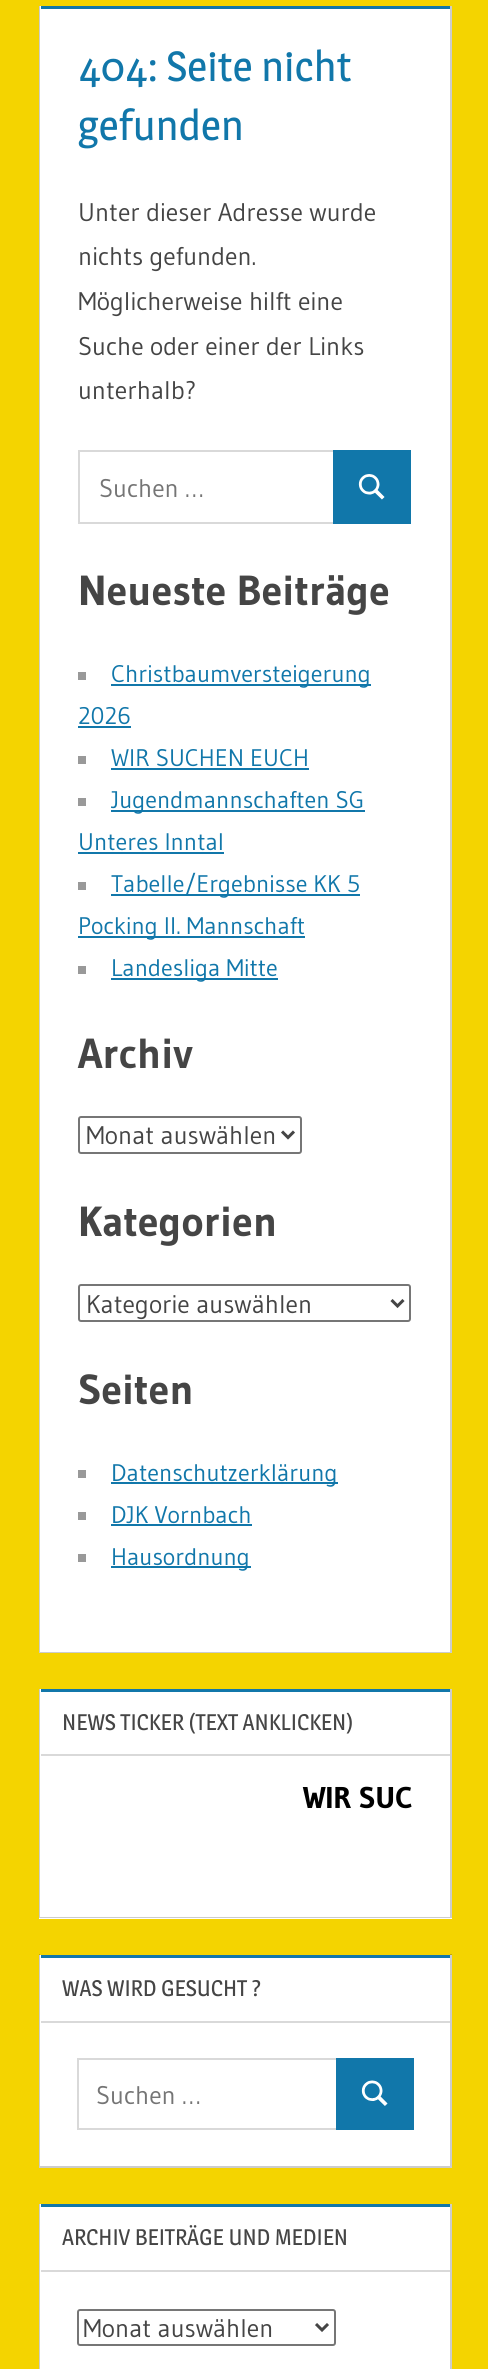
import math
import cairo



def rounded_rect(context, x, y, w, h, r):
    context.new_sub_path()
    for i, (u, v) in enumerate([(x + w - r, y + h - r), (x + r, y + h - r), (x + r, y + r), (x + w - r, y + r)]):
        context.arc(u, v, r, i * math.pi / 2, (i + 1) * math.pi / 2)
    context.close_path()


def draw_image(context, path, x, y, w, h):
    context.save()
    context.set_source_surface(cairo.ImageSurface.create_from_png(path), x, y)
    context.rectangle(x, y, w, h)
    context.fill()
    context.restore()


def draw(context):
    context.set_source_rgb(244 / 255, 212 / 255, 0)
    context.paint()
    context.set_source_rgb(1, 1, 1)
    context.rectangle(39, 6, 413, 1647)
    context.fill()
    context.set_source_rgb(17 / 255, 119 / 255, 170 / 255)
    context.rectangle(41, 6, 409, 3)
    context.fill()
    context.set_source_rgb(204 / 255, 204 / 255, 204 / 255)
    context.new_path()
    context.move_to(452, 6)
    context.line_to(452, 1653)
    context.line_to(450, 1652)
    context.line_to(450, 6)
    context.close_path()
    context.fill()
    context.set_source_rgba(0, 0, 0, 0.2)
    context.new_path()
    context.move_to(452, 1653)
    context.line_to(39, 1653)
    context.line_to(40, 1652)
    context.line_to(450, 1652)
    context.close_path()
    context.fill()
    context.new_path()
    context.move_to(39, 1653)
    context.line_to(39, 6)
    context.line_to(40, 6)
    context.line_to(40, 1652)
    context.close_path()
    context.fill()
    context.rectangle(79, 451, 255, 72)
    context.set_source_rgb(217 / 255, 217 / 255, 217 / 255)
    context.stroke()
    context.set_source_rgb(17 / 255, 119 / 255, 170 / 255)
    context.rectangle(333, 450, 78, 74)
    context.fill()
    draw_image(context, "images/1.png", 358, 474, 27, 26)
    context.set_source_rgb(153 / 255, 153 / 255, 153 / 255)
    context.rectangle(78, 672, 8, 8)
    context.fill()
    context.set_source_rgb(17 / 255, 119 / 255, 170 / 255)
    context.rectangle(111, 684, 260, 2)
    context.fill()
    context.rectangle(78, 726, 53, 2)
    context.fill()
    context.set_source_rgb(153 / 255, 153 / 255, 153 / 255)
    context.rectangle(78, 756, 8, 8)
    context.fill()
    context.set_source_rgb(17 / 255, 119 / 255, 170 / 255)
    context.rectangle(111, 768, 198, 2)
    context.fill()
    context.set_source_rgb(153 / 255, 153 / 255, 153 / 255)
    context.rectangle(78, 798, 8, 8)
    context.fill()
    context.set_source_rgb(17 / 255, 119 / 255, 170 / 255)
    context.rectangle(111, 810, 254, 2)
    context.fill()
    context.rectangle(78, 852, 146, 2)
    context.fill()
    context.set_source_rgb(153 / 255, 153 / 255, 153 / 255)
    context.rectangle(78, 882, 8, 8)
    context.fill()
    context.set_source_rgb(17 / 255, 119 / 255, 170 / 255)
    context.rectangle(111, 894, 249, 2)
    context.fill()
    context.rectangle(78, 936, 227, 2)
    context.fill()
    context.set_source_rgb(153 / 255, 153 / 255, 153 / 255)
    context.rectangle(78, 966, 8, 8)
    context.fill()
    context.set_source_rgb(17 / 255, 119 / 255, 170 / 255)
    context.rectangle(111, 978, 167, 2)
    context.fill()
    rounded_rect(context, 79, 1117, 222, 36, 2)
    context.set_source_rgb(118 / 255, 118 / 255, 118 / 255)
    context.stroke()
    context.new_path()
    context.move_to(282, 1131.5)
    context.line_to(288, 1137.5)
    context.line_to(294, 1131.5)
    context.set_source_rgb(69 / 255, 69 / 255, 69 / 255)
    context.set_line_width(3)
    context.stroke()
    rounded_rect(context, 79, 1285, 331, 36, 2)
    context.set_source_rgb(118 / 255, 118 / 255, 118 / 255)
    context.set_line_width(2)
    context.stroke()
    context.new_path()
    context.move_to(391.5, 1300)
    context.line_to(397.5, 1306)
    context.line_to(403.5, 1300)
    context.set_source_rgb(69 / 255, 69 / 255, 69 / 255)
    context.set_line_width(3)
    context.stroke()
    context.set_source_rgb(153 / 255, 153 / 255, 153 / 255)
    context.rectangle(78, 1470, 8, 8)
    context.fill()
    context.set_source_rgb(17 / 255, 119 / 255, 170 / 255)
    context.rectangle(111, 1482, 227, 2)
    context.fill()
    context.set_source_rgb(153 / 255, 153 / 255, 153 / 255)
    context.rectangle(78, 1512, 8, 8)
    context.fill()
    context.set_source_rgb(17 / 255, 119 / 255, 170 / 255)
    context.rectangle(111, 1524, 141, 2)
    context.fill()
    context.set_source_rgb(153 / 255, 153 / 255, 153 / 255)
    context.rectangle(78, 1554, 8, 8)
    context.fill()
    context.set_source_rgb(17 / 255, 119 / 255, 170 / 255)
    context.rectangle(111, 1566, 140, 2)
    context.fill()
    context.set_source_rgb(1, 1, 1)
    context.rectangle(39, 1689, 413, 230)
    context.fill()
    context.set_source_rgb(17 / 255, 119 / 255, 170 / 255)
    context.rectangle(41, 1689, 409, 3)
    context.fill()
    context.set_source_rgb(204 / 255, 204 / 255, 204 / 255)
    context.new_path()
    context.move_to(452, 1689)
    context.line_to(452, 1918)
    context.line_to(450, 1917)
    context.line_to(450, 1689)
    context.close_path()
    context.fill()
    context.set_source_rgba(0, 0, 0, 0.2)
    context.new_path()
    context.move_to(452, 1918)
    context.line_to(39, 1918)
    context.line_to(40, 1917)
    context.line_to(450, 1917)
    context.close_path()
    context.fill()
    context.new_path()
    context.move_to(39, 1918)
    context.line_to(39, 1689)
    context.line_to(40, 1689)
    context.line_to(40, 1917)
    context.close_path()
    context.fill()
    context.set_source_rgb(217 / 255, 217 / 255, 217 / 255)
    context.rectangle(41, 1754, 409, 2)
    context.fill()
    context.set_source_rgb(1, 1, 1)
    context.rectangle(39, 1955, 413, 213)
    context.fill()
    context.set_source_rgb(17 / 255, 119 / 255, 170 / 255)
    context.rectangle(41, 1955, 409, 3)
    context.fill()
    context.set_source_rgba(0, 0, 0, 0.2)
    context.new_path()
    context.move_to(452, 1954)
    context.line_to(452, 2168)
    context.line_to(450, 2166)
    context.line_to(450, 1954)
    context.close_path()
    context.fill()
    context.new_path()
    context.move_to(452, 2168)
    context.line_to(39, 2168)
    context.line_to(40, 2166)
    context.line_to(450, 2166)
    context.close_path()
    context.fill()
    context.new_path()
    context.move_to(39, 2168)
    context.line_to(39, 1954)
    context.line_to(40, 1954)
    context.line_to(40, 2166)
    context.close_path()
    context.fill()
    context.set_source_rgb(217 / 255, 217 / 255, 217 / 255)
    context.rectangle(41, 2021, 409, 2)
    context.fill()
    context.rectangle(78, 2059, 259, 70)
    context.set_line_width(2)
    context.stroke()
    context.set_source_rgb(17 / 255, 119 / 255, 170 / 255)
    context.rectangle(336, 2058, 78, 72)
    context.fill()
    draw_image(context, "images/2.png", 361, 2080, 27, 26)
    context.set_source_rgb(1, 1, 1)
    context.rectangle(40, 2204, 410, 165)
    context.fill()
    context.set_source_rgb(17 / 255, 119 / 255, 170 / 255)
    context.rectangle(41, 2204, 409, 3)
    context.fill()
    context.set_source_rgb(204 / 255, 204 / 255, 204 / 255)
    context.new_path()
    context.move_to(452, 2204)
    context.line_to(452, 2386)
    context.line_to(450, 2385)
    context.line_to(450, 2204)
    context.close_path()
    context.fill()
    context.new_path()
    context.move_to(39, 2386)
    context.line_to(39, 2204)
    context.line_to(40, 2204)
    context.line_to(40, 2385)
    context.close_path()
    context.fill()
    context.set_source_rgb(217 / 255, 217 / 255, 217 / 255)
    context.rectangle(41, 2270, 409, 2)
    context.fill()
    rounded_rect(context, 78, 2310, 257, 35, 2)
    context.set_source_rgb(118 / 255, 118 / 255, 118 / 255)
    context.stroke()
    context.new_path()
    context.move_to(316, 2324)
    context.line_to(322, 2330)
    context.line_to(328, 2324)
    context.set_source_rgb(69 / 255, 69 / 255, 69 / 255)
    context.set_line_width(3)
    context.stroke()
    context.select_font_face("Magra")
    context.set_font_size(42)
    context.set_source_rgb(17 / 255, 119 / 255, 170 / 255)
    context.move_to(78, 81)
    context.show_text("404: Seite nicht")
    context.move_to(78, 140)
    context.show_text("gefunden")
    context.select_font_face("Gudea")
    context.set_font_size(25.5)
    context.set_source_rgb(69 / 255, 69 / 255, 69 / 255)
    context.move_to(78, 221)
    context.show_text("Unter dieser Adresse wurde")
    context.move_to(78, 265)
    context.show_text("nichts gefunden.")
    context.move_to(78, 310)
    context.show_text("Möglicherweise hilft eine")
    context.move_to(78, 355)
    context.show_text("Suche oder einer der Links")
    context.move_to(78, 399)
    context.show_text("unterhalb?")
    context.set_source_rgb(117 / 255, 117 / 255, 117 / 255)
    context.move_to(99, 497)
    context.show_text("Suchen …")
    context.select_font_face("Gudea", cairo.FontSlant.NORMAL, cairo.FontWeight.BOLD)
    context.set_font_size(42)
    context.set_source_rgb(69 / 255, 69 / 255, 69 / 255)
    context.move_to(78, 605)
    context.show_text("Neueste Beiträge")
    context.select_font_face("Gudea")
    context.set_font_size(24)
    context.set_source_rgb(17 / 255, 119 / 255, 170 / 255)
    context.move_to(111, 682)
    context.show_text("Christbaumversteigerung")
    context.move_to(78, 724)
    context.show_text("2026")
    context.move_to(111, 766)
    context.show_text("WIR SUCHEN EUCH")
    context.move_to(111, 808)
    context.show_text("Jugendmannschaften SG")
    context.move_to(78, 850)
    context.show_text("Unteres Inntal")
    context.move_to(111, 892)
    context.show_text("Tabelle/Ergebnisse KK 5")
    context.move_to(78, 934)
    context.show_text("Pocking II. Mannschaft")
    context.move_to(111, 976)
    context.show_text("Landesliga Mitte")
    context.select_font_face("Gudea", cairo.FontSlant.NORMAL, cairo.FontWeight.BOLD)
    context.set_font_size(42)
    context.set_source_rgb(69 / 255, 69 / 255, 69 / 255)
    context.move_to(78, 1068)
    context.show_text("Archiv")
    context.select_font_face("Gudea")
    context.set_font_size(25.5)
    context.move_to(86, 1144)
    context.show_text("Monat auswählen")
    context.select_font_face("Gudea", cairo.FontSlant.NORMAL, cairo.FontWeight.BOLD)
    context.set_font_size(42)
    context.move_to(78, 1236)
    context.show_text("Kategorien")
    context.select_font_face("Gudea")
    context.set_font_size(25.5)
    context.move_to(86, 1313)
    context.show_text("Kategorie auswählen")
    context.select_font_face("Gudea", cairo.FontSlant.NORMAL, cairo.FontWeight.BOLD)
    context.set_font_size(42)
    context.move_to(78, 1404)
    context.show_text("Seiten")
    context.select_font_face("Gudea")
    context.set_font_size(24)
    context.set_source_rgb(17 / 255, 119 / 255, 170 / 255)
    context.move_to(111, 1481)
    context.show_text("Datenschutzerklärung")
    context.move_to(111, 1523)
    context.show_text("DJK Vornbach")
    context.move_to(111, 1565)
    context.show_text("Hausordnung")
    context.select_font_face("Magra")
    context.set_font_size(22.5)
    context.set_source_rgb(69 / 255, 69 / 255, 69 / 255)
    context.move_to(62, 1730)
    context.show_text("NEWS TICKER (TEXT ANKLICKEN)")
    context.select_font_face("Gudea", cairo.FontSlant.NORMAL, cairo.FontWeight.BOLD)
    context.set_font_size(30)
    context.set_source_rgb(0, 0, 0)
    context.move_to(303, 1808)
    context.show_text("WIR SUC")
    context.select_font_face("Magra")
    context.set_font_size(22.5)
    context.set_source_rgb(69 / 255, 69 / 255, 69 / 255)
    context.move_to(62, 1996)
    context.show_text("WAS WIRD GESUCHT ?")
    context.select_font_face("Gudea")
    context.set_font_size(25.5)
    context.set_source_rgb(117 / 255, 117 / 255, 117 / 255)
    context.move_to(96, 2104)
    context.show_text("Suchen …")
    context.select_font_face("Magra")
    context.set_font_size(22.5)
    context.set_source_rgb(69 / 255, 69 / 255, 69 / 255)
    context.move_to(62, 2245)
    context.show_text("ARCHIV BEITRÄGE UND MEDIEN")
    context.select_font_face("Gudea")
    context.set_font_size(25.5)
    context.move_to(83, 2337)
    context.show_text("Monat auswählen")


surface = cairo.ImageSurface(cairo.Format.RGB24, 488, 2369)
context = cairo.Context(surface)
options = cairo.FontOptions()
options.set_hint_metrics(cairo.HintMetrics.OFF)
options.set_hint_style(cairo.HintStyle.NONE)
context.set_font_options(options)
context.set_miter_limit(4)
draw(context)
surface.write_to_png("out.png")
